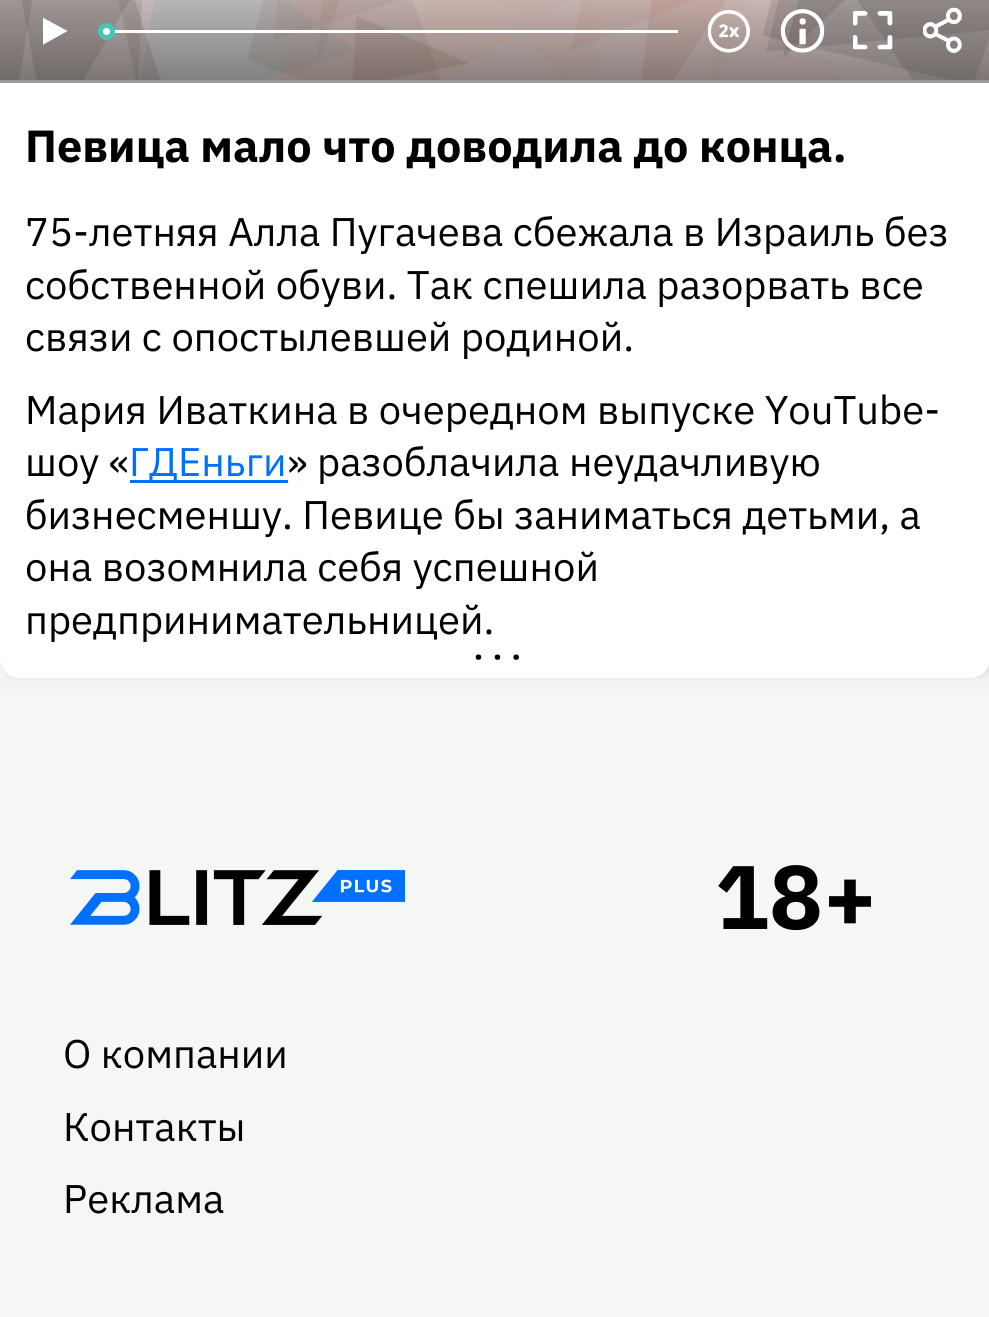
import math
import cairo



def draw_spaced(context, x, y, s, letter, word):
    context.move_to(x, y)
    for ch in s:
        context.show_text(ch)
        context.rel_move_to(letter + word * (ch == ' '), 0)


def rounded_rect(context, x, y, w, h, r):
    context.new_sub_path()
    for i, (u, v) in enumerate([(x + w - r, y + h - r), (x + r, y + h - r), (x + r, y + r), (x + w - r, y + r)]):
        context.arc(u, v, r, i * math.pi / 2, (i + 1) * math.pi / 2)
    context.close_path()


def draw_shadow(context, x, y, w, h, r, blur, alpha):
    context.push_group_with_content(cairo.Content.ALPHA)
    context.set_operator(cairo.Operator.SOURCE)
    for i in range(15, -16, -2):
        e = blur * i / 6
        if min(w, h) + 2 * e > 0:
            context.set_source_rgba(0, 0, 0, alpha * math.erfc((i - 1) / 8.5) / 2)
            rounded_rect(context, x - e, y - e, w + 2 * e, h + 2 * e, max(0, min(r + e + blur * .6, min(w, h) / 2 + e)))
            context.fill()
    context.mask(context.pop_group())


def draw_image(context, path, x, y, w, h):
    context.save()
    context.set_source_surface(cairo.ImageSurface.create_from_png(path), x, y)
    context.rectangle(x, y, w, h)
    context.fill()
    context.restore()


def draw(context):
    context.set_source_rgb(245 / 255, 247 / 255, 246 / 255)
    context.paint()
    context.set_source_rgb(0, 0, 0)
    draw_shadow(context, 0, -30, 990, 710, 0, 10, 0.05)
    context.set_source_rgb(1, 1, 1)
    context.rectangle(0, 658, 989, 20)
    context.fill()
    context.save()
    context.rectangle(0, 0, 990, 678)
    context.clip()
    context.set_source_rgb(0, 0, 0)
    draw_shadow(context, 3, -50, 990, 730, 20, 10, 0.2)
    context.restore()
    context.new_path()
    context.move_to(13, -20)
    context.line_to(977, -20)
    context.curve_to(984, -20, 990, -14, 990, -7)
    context.line_to(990, 658)
    context.curve_to(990, 669, 981, 678, 970, 678)
    context.line_to(20, 678)
    context.curve_to(9, 678, 0, 669, 0, 658)
    context.line_to(0, -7)
    context.curve_to(0, -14, 6, -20, 13, -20)
    context.close_path()
    context.fill()
    draw_image(context, "images/1.png", 0, 0, 989, 80)
    gradient = cairo.LinearGradient(495, -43, 495, 83)
    gradient.add_color_stop_rgba(0, 0, 0, 0, 0)
    gradient.add_color_stop_rgba(1, 0, 0, 0, 0.4)
    context.set_source(gradient)
    context.rectangle(0, 0, 989, 83)
    context.fill()
    draw_image(context, "images/2.png", 780, 9, 45, 44)
    draw_image(context, "images/3.png", 853, 11, 40, 39)
    draw_image(context, "images/4.png", 923, 7, 39, 46)
    context.save()
    context.rectangle(43, 15, 25, 33)
    context.clip()
    context.set_source_rgb(1, 1, 1)
    context.new_path()
    context.move_to(67.5, 31)
    context.line_to(42.5, 17.5)
    context.line_to(42.5, 45)
    context.close_path()
    context.fill()
    context.restore()
    context.set_source_rgb(1, 1, 1)
    context.rectangle(114, 30, 564, 3)
    context.fill()
    context.arc(106.5, 31.5, 6, 0, 2 * math.pi)
    context.fill_preserve()
    context.set_source_rgb(72 / 255, 197 / 255, 182 / 255)
    context.set_line_width(5)
    context.stroke()
    draw_image(context, "images/5.png", 708, 10, 42, 43)
    context.set_source_rgb(0, 112 / 255, 1)
    context.rectangle(130, 480, 158, 3)
    context.fill()
    draw_image(context, "images/6.png", 70, 870, 335, 55)
    context.select_font_face("IBM Plex Sans", cairo.FontSlant.NORMAL, cairo.FontWeight.BOLD)
    context.set_font_size(45)
    context.set_source_rgb(0, 0, 0)
    context.move_to(25, 162)
    context.show_text("Певица мало что доводила до конца.")
    context.select_font_face("IBM Plex Sans")
    context.set_font_size(40)
    context.move_to(25, 246)
    context.show_text("75-летняя Алла Пугачева сбежала в Израиль без")
    context.move_to(25, 299)
    context.show_text("собственной обуви. Так спешила разорвать все")
    context.move_to(25, 351)
    context.show_text("связи с опостылевшей родиной.")
    context.move_to(25, 424)
    context.show_text("Мария Иваткина в очередном выпуске YouTube-")
    context.move_to(25, 476)
    context.show_text("шоу «")
    context.set_source_rgb(0, 112 / 255, 1)
    context.move_to(129, 476)
    context.show_text("ГДЕньги")
    context.set_source_rgb(0, 0, 0)
    context.move_to(287, 476)
    context.show_text("» разоблачила неудачливую")
    context.move_to(25, 529)
    context.show_text("бизнесменшу. Певице бы заниматься детьми, а")
    context.move_to(25, 581)
    context.show_text("она возомнила себя успешной")
    context.move_to(25, 634)
    context.show_text("предпринимательницей.")
    context.set_font_size(22.5)
    draw_spaced(context, 474, 664, "•••", 10, 0)
    context.select_font_face("IBM Plex Sans", cairo.FontSlant.NORMAL, cairo.FontWeight.BOLD)
    context.set_font_size(90)
    context.move_to(715, 929)
    context.show_text("18+")
    context.select_font_face("IBM Plex Sans")
    context.set_font_size(40)
    context.move_to(63, 1068)
    context.show_text("О компании")
    context.move_to(63, 1141)
    context.show_text("Контакты")
    context.move_to(63, 1213)
    context.show_text("Реклама")


surface = cairo.ImageSurface(cairo.Format.RGB24, 989, 1317)
context = cairo.Context(surface)
options = cairo.FontOptions()
options.set_hint_metrics(cairo.HintMetrics.OFF)
options.set_hint_style(cairo.HintStyle.NONE)
context.set_font_options(options)
context.set_miter_limit(4)
draw(context)
surface.write_to_png("out.png")
